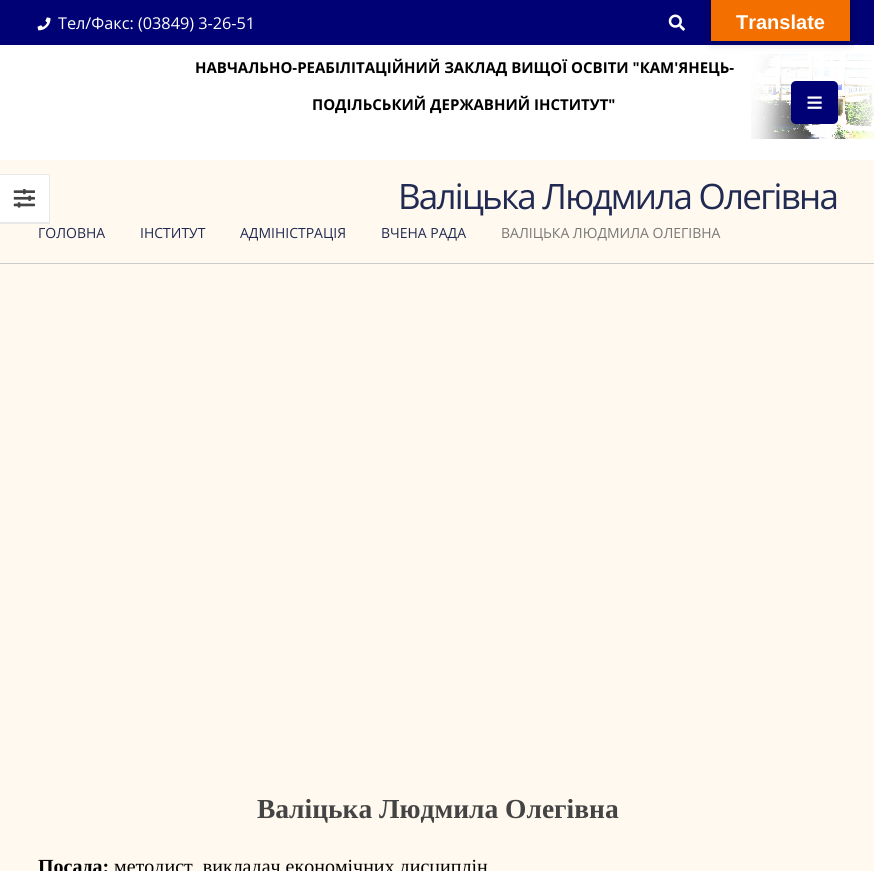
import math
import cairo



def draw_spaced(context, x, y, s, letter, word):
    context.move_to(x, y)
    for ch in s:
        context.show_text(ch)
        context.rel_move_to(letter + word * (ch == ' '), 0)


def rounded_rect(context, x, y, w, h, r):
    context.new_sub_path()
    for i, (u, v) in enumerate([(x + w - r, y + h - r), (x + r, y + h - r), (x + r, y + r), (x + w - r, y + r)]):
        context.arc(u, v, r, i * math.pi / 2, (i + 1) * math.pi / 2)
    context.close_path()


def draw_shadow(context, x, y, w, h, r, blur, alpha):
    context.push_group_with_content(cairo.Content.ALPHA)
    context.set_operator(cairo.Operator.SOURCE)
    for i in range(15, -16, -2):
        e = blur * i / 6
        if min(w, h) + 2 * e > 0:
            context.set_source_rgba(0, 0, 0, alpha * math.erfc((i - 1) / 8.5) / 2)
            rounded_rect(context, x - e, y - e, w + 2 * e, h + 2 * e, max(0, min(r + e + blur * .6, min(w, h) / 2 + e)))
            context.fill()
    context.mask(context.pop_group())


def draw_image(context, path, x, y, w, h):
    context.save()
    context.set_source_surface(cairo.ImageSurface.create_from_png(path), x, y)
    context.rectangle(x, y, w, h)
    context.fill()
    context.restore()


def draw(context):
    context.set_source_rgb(1, 249 / 255, 239 / 255)
    context.paint()
    context.set_source_rgb(0, 1 / 255, 117 / 255)
    context.rectangle(0, 0, 874, 45)
    context.fill()
    context.set_source_rgb(1, 1, 1)
    context.rectangle(0, 45, 874, 115)
    context.fill()
    draw_image(context, "images/3.png", 751, 54, 123, 85)
    context.set_source_rgb(0, 0, 0)
    draw_shadow(context, 711, 0, 139, 41, 0, 5.5, 0.3)
    context.set_source_rgb(243 / 255, 111 / 255, 0)
    context.rectangle(711, 0, 139, 41)
    context.fill()
    draw_image(context, "images/1.png", 37, 17, 14, 14)
    context.set_source_rgb(0, 1 / 255, 111 / 255)
    context.rectangle(279, 13, 1, 20)
    context.fill()
    draw_image(context, "images/2.png", 668, 14, 17, 17)
    context.set_source_rgb(0, 1 / 255, 117 / 255)
    rounded_rect(context, 791, 81, 47, 43, 5)
    context.fill()
    draw_image(context, "images/4.png", 807, 96, 15, 13)
    context.set_source_rgb(204 / 255, 204 / 255, 204 / 255)
    context.rectangle(0, 263, 874, 1)
    context.fill()
    context.set_source_rgb(1, 1, 1)
    context.rectangle(0, 174, 50, 50)
    context.fill()
    context.set_source_rgb(232 / 255, 232 / 255, 232 / 255)
    context.new_path()
    context.move_to(0, 174)
    context.line_to(50, 174)
    context.line_to(49, 175)
    context.line_to(0, 175)
    context.close_path()
    context.fill()
    context.set_source_rgba(0, 0, 0, 0.09)
    context.new_path()
    context.move_to(50, 174)
    context.line_to(50, 224)
    context.line_to(49, 222)
    context.line_to(49, 175)
    context.close_path()
    context.fill()
    context.new_path()
    context.move_to(50, 224)
    context.line_to(0, 224)
    context.line_to(0, 222)
    context.line_to(49, 222)
    context.close_path()
    context.fill()
    draw_image(context, "images/5.png", 13, 189, 22, 19)
    context.select_font_face("Liberation Sans", cairo.FontSlant.NORMAL, cairo.FontWeight.BOLD)
    context.set_font_size(20)
    context.set_source_rgb(1, 1, 1)
    context.move_to(736, 29)
    context.show_text("Translate")
    context.select_font_face("Open Sans")
    context.set_font_size(16.25)
    context.move_to(58, 29)
    context.show_text("Тел/Факс: (03849) 3-26-51")
    context.select_font_face("Open Sans", cairo.FontSlant.NORMAL, cairo.FontWeight.BOLD)
    context.set_font_size(15)
    context.set_source_rgb(0, 0, 0)
    context.move_to(195, 73)
    context.show_text("НАВЧАЛЬНО-РЕАБІЛІТАЦІЙНИЙ ЗАКЛАД ВИЩОЇ ОСВІТИ \"КАМ'ЯНЕЦЬ-")
    context.move_to(312, 110)
    context.show_text("ПОДІЛЬСЬКИЙ ДЕРЖАВНИЙ ІНСТИТУТ\"")
    context.select_font_face("Open Sans")
    context.set_font_size(35)
    context.set_source_rgb(32 / 255, 42 / 255, 82 / 255)
    draw_spaced(context, 398, 209, "Валіцька Людмила Олегівна", -1.75, 0)
    context.set_font_size(14)
    context.move_to(38, 238)
    context.show_text("ГОЛОВНА")
    context.move_to(140, 238)
    context.show_text("ІНСТИТУТ")
    context.move_to(240, 238)
    context.show_text("АДМІНІСТРАЦІЯ")
    context.move_to(381, 238)
    context.show_text("ВЧЕНА РАДА")
    context.set_source_rgb(119 / 255, 119 / 255, 119 / 255)
    context.move_to(501, 238)
    context.show_text("ВАЛІЦЬКА ЛЮДМИЛА ОЛЕГІВНА")
    context.select_font_face("Liberation Serif", cairo.FontSlant.NORMAL, cairo.FontWeight.BOLD)
    context.set_font_size(27.5)
    context.set_source_rgb(68 / 255, 68 / 255, 68 / 255)
    context.move_to(257, 818)
    context.show_text("Валіцька Людмила Олегівна")
    context.set_font_size(20)
    context.set_source_rgb(0, 0, 0)
    context.move_to(38, 873)
    context.show_text("Посада:")
    context.select_font_face("Liberation Serif")
    context.move_to(114, 873)
    context.show_text("методист, викладач економічних дисциплін")


surface = cairo.ImageSurface(cairo.Format.RGB24, 874, 871)
context = cairo.Context(surface)
options = cairo.FontOptions()
options.set_hint_metrics(cairo.HintMetrics.OFF)
options.set_hint_style(cairo.HintStyle.NONE)
context.set_font_options(options)
context.set_miter_limit(4)
draw(context)
surface.write_to_png("out.png")
